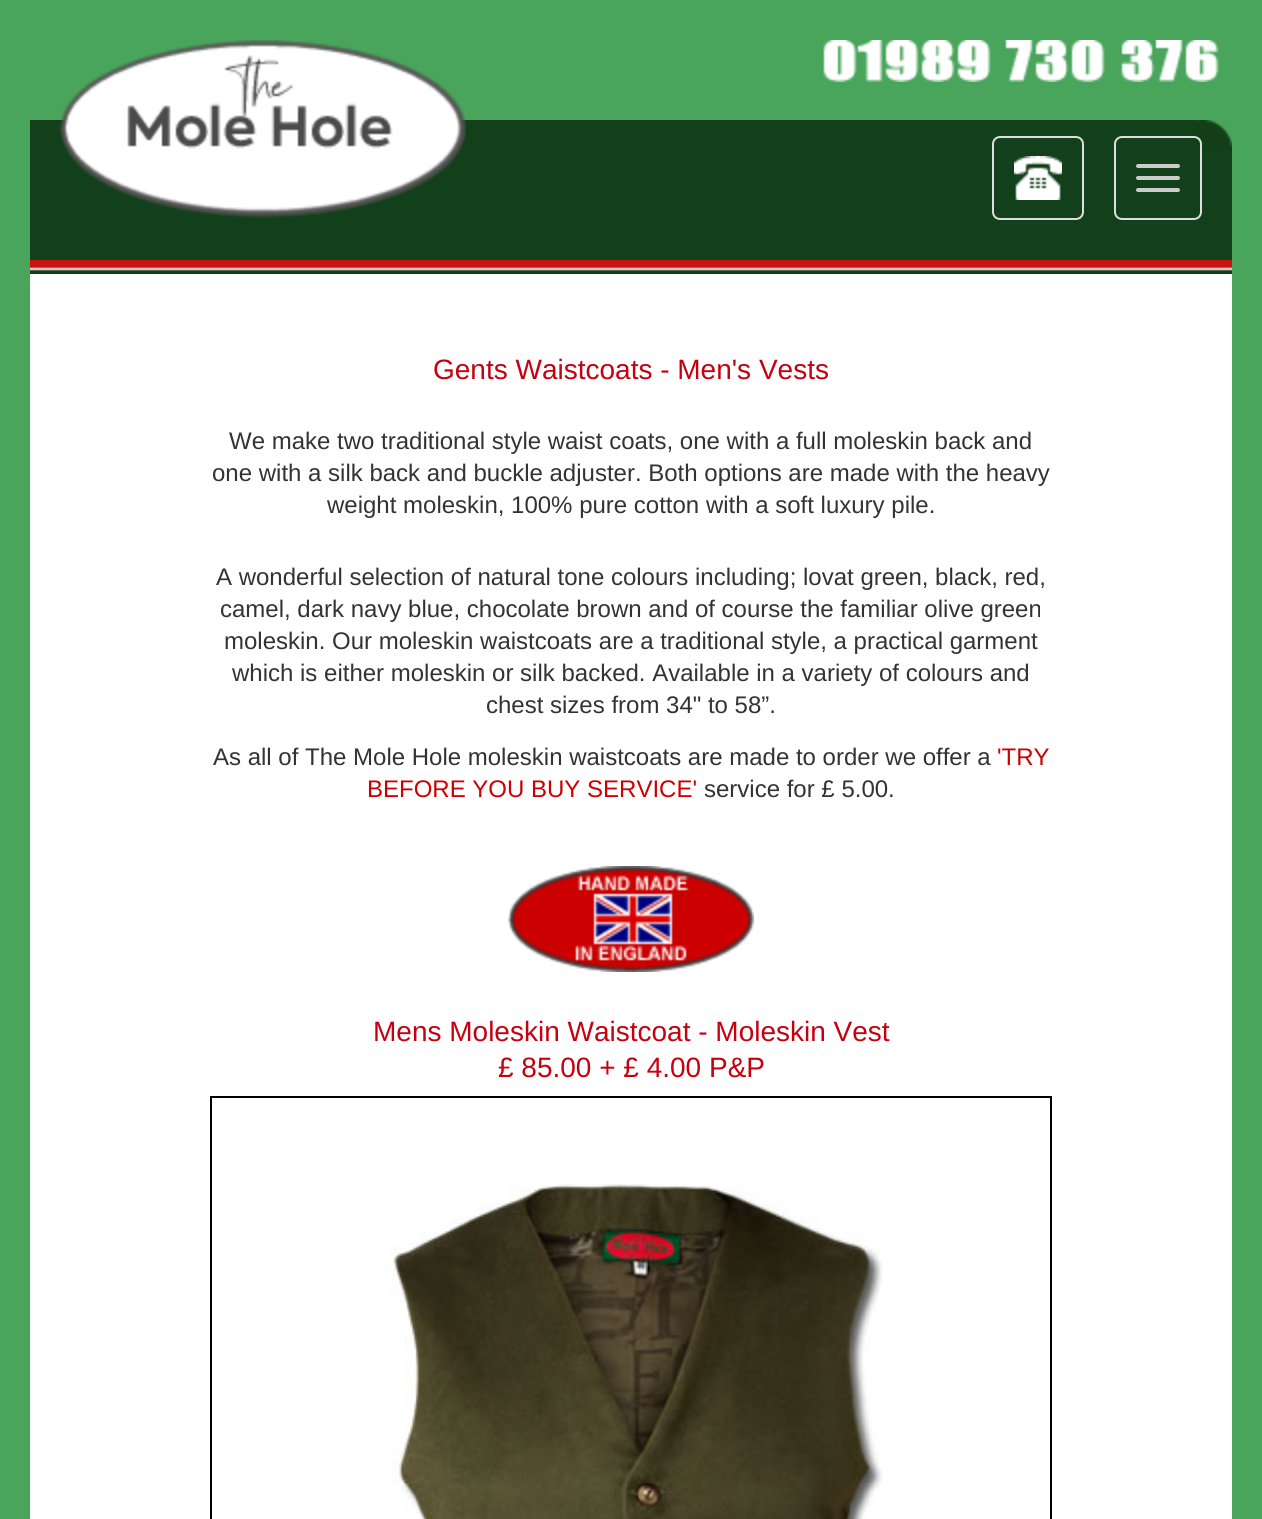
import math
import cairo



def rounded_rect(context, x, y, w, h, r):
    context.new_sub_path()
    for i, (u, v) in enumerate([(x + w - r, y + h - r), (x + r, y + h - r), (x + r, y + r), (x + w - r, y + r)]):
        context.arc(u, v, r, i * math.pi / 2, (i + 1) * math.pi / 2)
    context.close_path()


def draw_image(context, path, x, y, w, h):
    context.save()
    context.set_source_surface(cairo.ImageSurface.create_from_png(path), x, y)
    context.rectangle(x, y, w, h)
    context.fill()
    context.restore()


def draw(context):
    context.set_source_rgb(74 / 255, 165 / 255, 92 / 255)
    context.paint()
    context.set_source_rgb(1, 1, 1)
    context.rectangle(30, 274, 1202, 1245)
    context.fill()
    context.set_source_rgb(18 / 255, 64 / 255, 27 / 255)
    context.rectangle(30, 120, 1202, 140)
    context.fill()
    draw_image(context, "images/1.png", 1196, 120, 36, 27)
    draw_image(context, "images/2.png", 60, 40, 406, 178)
    rounded_rect(context, 993, 137, 90, 82, 7)
    context.set_source_rgb(221 / 255, 221 / 255, 221 / 255)
    context.stroke()
    draw_image(context, "images/3.png", 1014, 156, 48, 44)
    rounded_rect(context, 1115, 137, 86, 82, 7)
    context.stroke()
    context.set_source_rgb(204 / 255, 204 / 255, 204 / 255)
    rounded_rect(context, 1136, 164, 44, 4, 2)
    context.fill()
    rounded_rect(context, 1136, 176, 44, 4, 2)
    context.fill()
    rounded_rect(context, 1136, 188, 44, 4, 2)
    context.fill()
    draw_image(context, "images/4.png", 823, 40, 396, 42)
    draw_image(context, "images/5.png", 30, 260, 1202, 14)
    draw_image(context, "images/6.png", 508, 866, 246, 106)
    context.rectangle(211, 1097, 840, 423)
    context.set_source_rgb(0, 0, 0)
    context.stroke()
    draw_image(context, "images/7.png", 390, 1184, 493, 335)
    context.select_font_face("Liberation Sans")
    context.set_font_size(28)
    context.set_source_rgb(198 / 255, 0, 15 / 255)
    context.move_to(433, 379)
    context.show_text("Gents Waistcoats - Men's Vests")
    context.set_font_size(24)
    context.set_source_rgb(51 / 255, 51 / 255, 51 / 255)
    context.move_to(229, 449)
    context.show_text("We make two traditional style waist coats, one with a full moleskin back and")
    context.move_to(212, 481)
    context.show_text("one with a silk back and buckle adjuster. Both options are made with the heavy")
    context.move_to(327, 513)
    context.show_text("weight moleskin, 100% pure cotton with a soft luxury pile.")
    context.move_to(216, 585)
    context.show_text("A wonderful selection of natural tone colours including; lovat green, black, red,")
    context.move_to(220, 617)
    context.show_text("camel, dark navy blue, chocolate brown and of course the familiar olive green")
    context.move_to(224, 649)
    context.show_text("moleskin. Our moleskin waistcoats are a traditional style, a practical garment")
    context.move_to(232, 681)
    context.show_text("which is either moleskin or silk backed. Available in a variety of colours and")
    context.move_to(486, 713)
    context.show_text("chest sizes from 34\" to 58”.")
    context.move_to(213, 765)
    context.show_text("As all of The Mole Hole moleskin waistcoats are made to order we offer a")
    context.set_source_rgb(204 / 255, 0, 0)
    context.move_to(997, 765)
    context.show_text("'TRY")
    context.move_to(367, 797)
    context.show_text("BEFORE YOU BUY SERVICE'")
    context.set_source_rgb(51 / 255, 51 / 255, 51 / 255)
    context.move_to(704, 797)
    context.show_text("service for £ 5.00.")
    context.set_font_size(28)
    context.set_source_rgb(198 / 255, 0, 15 / 255)
    context.move_to(373, 1041)
    context.show_text("Mens Moleskin Waistcoat - Moleskin Vest")
    context.move_to(498, 1077)
    context.show_text("£ 85.00 + £ 4.00 P&P")


surface = cairo.ImageSurface(cairo.Format.RGB24, 1262, 1519)
context = cairo.Context(surface)
options = cairo.FontOptions()
options.set_hint_metrics(cairo.HintMetrics.OFF)
options.set_hint_style(cairo.HintStyle.NONE)
context.set_font_options(options)
context.set_miter_limit(4)
draw(context)
surface.write_to_png("out.png")
